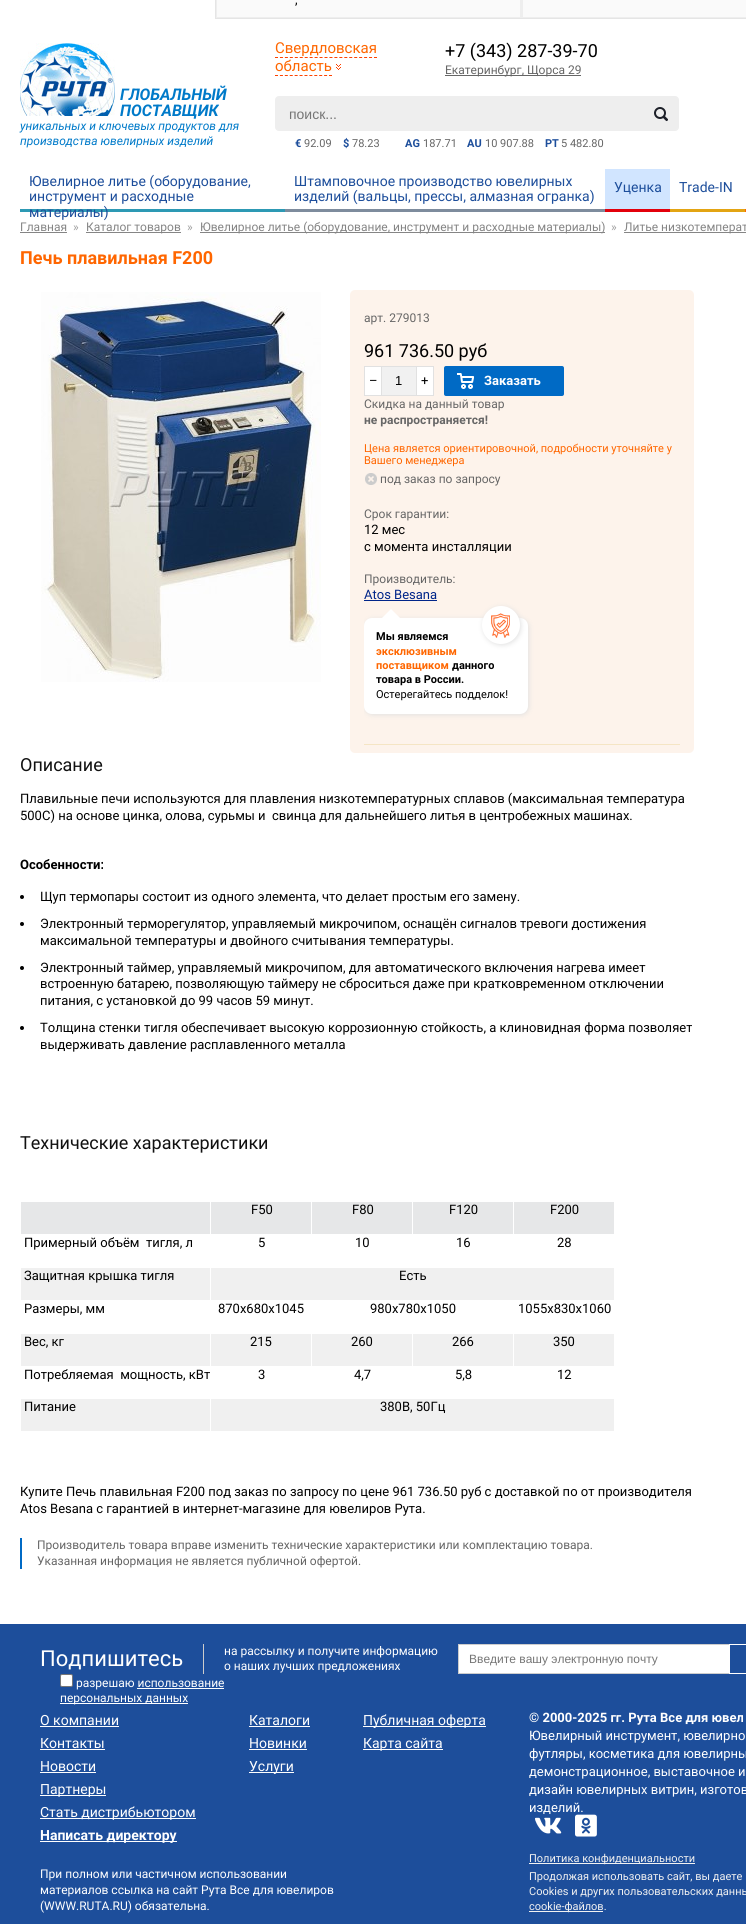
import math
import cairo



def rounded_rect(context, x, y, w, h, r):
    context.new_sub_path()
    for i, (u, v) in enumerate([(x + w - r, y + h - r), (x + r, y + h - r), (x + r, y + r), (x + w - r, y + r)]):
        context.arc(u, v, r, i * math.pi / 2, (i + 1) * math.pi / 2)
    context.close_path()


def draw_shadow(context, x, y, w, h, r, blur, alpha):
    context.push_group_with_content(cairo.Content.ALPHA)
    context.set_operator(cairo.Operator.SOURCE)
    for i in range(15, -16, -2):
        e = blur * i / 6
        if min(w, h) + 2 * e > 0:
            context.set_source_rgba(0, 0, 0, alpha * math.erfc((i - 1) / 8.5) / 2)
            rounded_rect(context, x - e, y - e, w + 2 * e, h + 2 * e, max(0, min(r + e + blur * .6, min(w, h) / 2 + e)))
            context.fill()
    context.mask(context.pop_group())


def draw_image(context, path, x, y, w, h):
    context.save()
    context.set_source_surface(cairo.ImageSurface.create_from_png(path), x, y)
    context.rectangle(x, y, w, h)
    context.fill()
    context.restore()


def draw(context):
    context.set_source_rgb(29 / 255, 78 / 255, 155 / 255)
    context.paint()
    context.set_source_rgb(1, 1, 1)
    context.rectangle(0, 19, 746, 1605)
    context.fill()
    context.set_source_rgb(238 / 255, 238 / 255, 238 / 255)
    context.rectangle(216, 0, 530, 18)
    context.fill()
    context.set_source_rgb(229 / 255, 229 / 255, 229 / 255)
    context.rectangle(216, 18, 530, 1)
    context.fill()
    context.set_source_rgb(1, 1, 1)
    context.rectangle(0, 0, 215, 19)
    context.fill()
    context.set_source_rgb(229 / 255, 229 / 255, 229 / 255)
    context.rectangle(215, 0, 1, 19)
    context.fill()
    context.set_source_rgb(250 / 255, 250 / 255, 250 / 255)
    context.rectangle(217, 0, 303, 17)
    context.fill()
    context.rectangle(523, 0, 223, 17)
    context.fill()
    context.new_path()
    context.move_to(275, 57.5)
    context.line_to(377, 57.5)
    context.set_source_rgb(254 / 255, 66 / 255, 0)
    context.set_line_width(1)
    context.set_dash([3, 1.95])
    context.stroke()
    context.new_path()
    context.move_to(275, 75.5)
    context.line_to(332, 75.5)
    context.set_dash([3, 1.91])
    context.stroke()
    draw_image(context, "images/1.png", 336, 64, 5, 6)
    context.set_source_rgb(102 / 255, 102 / 255, 102 / 255)
    context.rectangle(445, 75, 136, 1)
    context.fill()
    draw_image(context, "images/2.png", 20, 43, 95, 73)
    context.set_source_rgb(238 / 255, 238 / 255, 238 / 255)
    rounded_rect(context, 275.5, 96.5, 403, 34, 3.5)
    context.fill_preserve()
    context.set_dash([])
    context.stroke()
    draw_image(context, "images/3.png", 654, 107, 14, 15)
    context.set_source_rgb(45 / 255, 153 / 255, 180 / 255)
    context.rectangle(20, 209, 265, 3)
    context.fill()
    context.set_source_rgb(126 / 255, 140 / 255, 157 / 255)
    context.rectangle(285, 209, 320, 3)
    context.fill()
    context.set_source_rgb(209 / 255, 229 / 255, 1)
    context.rectangle(605, 169, 65, 40)
    context.fill()
    context.set_source_rgb(227 / 255, 0, 11 / 255)
    context.rectangle(605, 209, 65, 3)
    context.fill()
    context.set_source_rgb(227 / 255, 164 / 255, 19 / 255)
    context.rectangle(670, 209, 75, 3)
    context.fill()
    context.set_source_rgb(1, 102 / 255, 0)
    context.rectangle(745, 209, 1, 3)
    context.fill()
    context.set_source_rgb(133 / 255, 133 / 255, 133 / 255)
    context.rectangle(20, 232, 47, 1)
    context.fill()
    context.rectangle(86, 232, 95, 1)
    context.fill()
    context.rectangle(200, 232, 405, 1)
    context.fill()
    context.rectangle(624, 232, 122, 1)
    context.fill()
    draw_image(context, "images/4.png", 41, 292, 280, 390)
    context.set_source_rgb(253 / 255, 243 / 255, 235 / 255)
    rounded_rect(context, 350, 290, 344, 463, 5)
    context.fill()
    context.set_source_rgb(241 / 255, 241 / 255, 241 / 255)
    context.rectangle(382, 367, 34, 28)
    context.fill()
    context.rectangle(364.5, 366.5, 69, 29)
    context.set_source_rgb(225 / 255, 225 / 255, 225 / 255)
    context.stroke()
    context.set_source_rgb(1, 1, 1)
    context.rectangle(364.5, 366.5, 17, 29)
    context.fill_preserve()
    context.set_source_rgb(225 / 255, 225 / 255, 225 / 255)
    context.stroke()
    context.set_source_rgb(1, 1, 1)
    context.rectangle(416.5, 366.5, 17, 29)
    context.fill_preserve()
    context.set_source_rgb(225 / 255, 225 / 255, 225 / 255)
    context.stroke()
    context.set_source_rgb(0, 106 / 255, 197 / 255)
    rounded_rect(context, 444, 366, 120, 30, 2)
    context.fill()
    draw_image(context, "images/5.png", 457, 373, 17, 16)
    draw_image(context, "images/6.png", 365, 473, 12, 12)
    context.set_source_rgb(0, 37 / 255, 137 / 255)
    context.rectangle(364, 600, 73, 1)
    context.fill()
    context.save()
    context.rectangle(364, 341, 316, 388)
    context.clip()
    context.set_source_rgb(225 / 255, 225 / 255, 225 / 255)
    draw_shadow(context, 365, 619, 164, 96, 8, 2.5, 1)
    context.restore()
    context.set_source_rgb(1, 1, 1)
    rounded_rect(context, 364, 618, 164, 96, 8)
    context.fill()
    context.new_path()
    context.move_to(401, 619)
    context.line_to(381, 619)
    context.line_to(391, 609)
    context.close_path()
    context.fill()
    context.set_source_rgb(225 / 255, 225 / 255, 225 / 255)
    draw_shadow(context, 483, 607, 38, 38, 19, 2.5, 1)
    context.set_source_rgb(1, 1, 1)
    context.arc(501, 625, 19, 0, 2 * math.pi)
    context.fill()
    draw_image(context, "images/7.png", 491, 613, 19, 25)
    context.set_source_rgb(245 / 255, 229 / 255, 196 / 255)
    context.rectangle(364, 744, 316, 1)
    context.fill()
    context.set_source_rgb(0, 0, 0)
    context.arc(22, 897, 2, 0, 2 * math.pi)
    context.fill()
    context.arc(22, 924, 2, 0, 2 * math.pi)
    context.fill()
    context.arc(22, 968, 2, 0, 2 * math.pi)
    context.fill()
    context.arc(22, 1028, 2, 0, 2 * math.pi)
    context.fill()
    context.set_source_rgb(230 / 255, 231 / 255, 232 / 255)
    context.rectangle(21, 1202, 189, 32)
    context.fill()
    context.rectangle(211, 1202, 100, 32)
    context.fill()
    context.rectangle(312, 1202, 100, 32)
    context.fill()
    context.rectangle(413, 1202, 100, 32)
    context.fill()
    context.rectangle(514, 1202, 100, 32)
    context.fill()
    context.set_source_rgb(240 / 255, 240 / 255, 240 / 255)
    context.rectangle(21, 1268, 189, 32)
    context.fill()
    context.rectangle(211, 1268, 403, 32)
    context.fill()
    context.rectangle(21, 1334, 189, 32)
    context.fill()
    context.rectangle(211, 1334, 100, 32)
    context.fill()
    context.rectangle(312, 1334, 100, 32)
    context.fill()
    context.rectangle(413, 1334, 100, 32)
    context.fill()
    context.rectangle(514, 1334, 100, 32)
    context.fill()
    context.rectangle(21, 1399, 189, 32)
    context.fill()
    context.rectangle(211, 1399, 403, 32)
    context.fill()
    context.set_source_rgb(0, 106 / 255, 197 / 255)
    context.rectangle(20, 1538, 2, 31)
    context.fill()
    context.set_source_rgb(204 / 255, 204 / 255, 204 / 255)
    context.rectangle(203, 1644, 1, 30)
    context.fill()
    context.set_source_rgb(1, 1, 1)
    context.rectangle(459, 1645, 270, 28)
    context.fill()
    context.set_source_rgb(204 / 255, 204 / 255, 204 / 255)
    context.rectangle(458, 1644, 271, 1)
    context.fill()
    context.rectangle(458, 1673, 271, 1)
    context.fill()
    context.rectangle(458, 1644, 1, 30)
    context.fill()
    context.rectangle(729.5, 1644.5, 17, 29)
    context.set_source_rgb(1, 1, 1)
    context.stroke()
    rounded_rect(context, 60.5, 1674.5, 12, 12, 1.5)
    context.fill_preserve()
    context.set_source_rgb(118 / 255, 118 / 255, 118 / 255)
    context.stroke()
    context.set_source_rgb(1, 1, 1)
    context.rectangle(137, 1688, 87, 1)
    context.fill()
    context.rectangle(60, 1703, 128, 1)
    context.fill()
    context.rectangle(40, 1726, 79, 1)
    context.fill()
    context.rectangle(40, 1749, 65, 1)
    context.fill()
    context.rectangle(40, 1772, 56, 1)
    context.fill()
    context.rectangle(40, 1795, 66, 1)
    context.fill()
    context.rectangle(40, 1818, 156, 1)
    context.fill()
    context.rectangle(249, 1726, 61, 1)
    context.fill()
    context.rectangle(249, 1749, 58, 1)
    context.fill()
    context.rectangle(249, 1772, 45, 1)
    context.fill()
    context.rectangle(363, 1726, 123, 1)
    context.fill()
    context.rectangle(363, 1749, 80, 1)
    context.fill()
    context.rectangle(40, 1841, 137, 1)
    context.fill()
    draw_image(context, "images/8.png", 535, 1817, 27, 17)
    draw_image(context, "images/9.png", 575, 1814, 22, 23)
    context.set_source_rgb(241 / 255, 241 / 255, 241 / 255)
    context.rectangle(529, 1863, 166, 1)
    context.fill()
    context.rectangle(529, 1911, 74, 1)
    context.fill()
    context.select_font_face("Roboto")
    context.set_font_size(13)
    context.set_source_rgb(0, 0, 0)
    context.move_to(295, 4)
    context.show_text(",")
    context.set_font_size(15)
    context.set_source_rgb(1, 102 / 255, 0)
    context.move_to(275, 53)
    context.show_text("Свердловская")
    context.move_to(275, 71)
    context.show_text("область")
    context.set_font_size(18)
    context.set_source_rgb(0, 0, 0)
    context.move_to(445, 57)
    context.show_text("+7 (343) 287-39-70")
    context.set_font_size(12)
    context.set_source_rgb(102 / 255, 102 / 255, 102 / 255)
    context.move_to(445, 74)
    context.show_text("Екатеринбург, Щорса 29")
    context.select_font_face("Roboto", cairo.FontSlant.ITALIC, cairo.FontWeight.BOLD)
    context.set_font_size(16)
    context.set_source_rgb(0, 122 / 255, 201 / 255)
    context.move_to(120, 100)
    context.show_text("ГЛОБАЛЬНЫЙ")
    context.move_to(120, 116)
    context.show_text("ПОСТАВЩИК")
    context.select_font_face("Roboto", cairo.FontSlant.ITALIC)
    context.set_font_size(12)
    context.move_to(20, 130)
    context.show_text("уникальных и ключевых продуктов для")
    context.move_to(20, 145)
    context.show_text("производства ювелирных изделий")
    context.select_font_face("Liberation Sans")
    context.set_font_size(14)
    context.set_source_rgb(117 / 255, 117 / 255, 117 / 255)
    context.move_to(289, 119)
    context.show_text("поиск...")
    context.select_font_face("Roboto", cairo.FontSlant.NORMAL, cairo.FontWeight.BOLD)
    context.set_font_size(11)
    context.set_source_rgb(29 / 255, 78 / 255, 155 / 255)
    context.move_to(295, 147)
    context.show_text("€")
    context.select_font_face("Roboto")
    context.set_source_rgb(102 / 255, 102 / 255, 102 / 255)
    context.move_to(304, 147)
    context.show_text("92.09")
    context.select_font_face("Roboto", cairo.FontSlant.NORMAL, cairo.FontWeight.BOLD)
    context.set_source_rgb(29 / 255, 78 / 255, 155 / 255)
    context.move_to(343, 147)
    context.show_text("$")
    context.select_font_face("Roboto")
    context.set_source_rgb(102 / 255, 102 / 255, 102 / 255)
    context.move_to(352, 147)
    context.show_text("78.23")
    context.select_font_face("Roboto", cairo.FontSlant.NORMAL, cairo.FontWeight.BOLD)
    context.set_source_rgb(29 / 255, 78 / 255, 155 / 255)
    context.move_to(405, 147)
    context.show_text("AG")
    context.select_font_face("Roboto")
    context.set_source_rgb(102 / 255, 102 / 255, 102 / 255)
    context.move_to(423, 147)
    context.show_text("187.71")
    context.select_font_face("Roboto", cairo.FontSlant.NORMAL, cairo.FontWeight.BOLD)
    context.set_source_rgb(29 / 255, 78 / 255, 155 / 255)
    context.move_to(467, 147)
    context.show_text("AU")
    context.select_font_face("Roboto")
    context.set_source_rgb(102 / 255, 102 / 255, 102 / 255)
    context.move_to(485, 147)
    context.show_text("10 907.88")
    context.select_font_face("Roboto", cairo.FontSlant.NORMAL, cairo.FontWeight.BOLD)
    context.set_source_rgb(29 / 255, 78 / 255, 155 / 255)
    context.move_to(545, 147)
    context.show_text("PT")
    context.select_font_face("Roboto")
    context.set_source_rgb(102 / 255, 102 / 255, 102 / 255)
    context.move_to(561, 147)
    context.show_text("5 482.80")
    context.set_font_size(14)
    context.set_source_rgb(29 / 255, 78 / 255, 155 / 255)
    context.move_to(29, 186)
    context.show_text("Ювелирное литье (оборудование,")
    context.move_to(29, 201)
    context.show_text("инструмент и расходные")
    context.move_to(29, 217)
    context.show_text("материалы)")
    context.move_to(294, 186)
    context.show_text("Штамповочное производство ювелирных")
    context.move_to(294, 201)
    context.show_text("изделий (вальцы, прессы, алмазная огранка)")
    context.move_to(614, 192)
    context.show_text("Уценка")
    context.move_to(679, 192)
    context.show_text("Trade-IN")
    context.set_font_size(12)
    context.set_source_rgb(133 / 255, 133 / 255, 133 / 255)
    context.move_to(20, 231)
    context.show_text("Главная")
    context.set_source_rgb(160 / 255, 160 / 255, 160 / 255)
    context.move_to(73, 231)
    context.show_text("»")
    context.set_source_rgb(133 / 255, 133 / 255, 133 / 255)
    context.move_to(86, 231)
    context.show_text("Каталог товаров")
    context.set_source_rgb(160 / 255, 160 / 255, 160 / 255)
    context.move_to(187, 231)
    context.show_text("»")
    context.set_source_rgb(133 / 255, 133 / 255, 133 / 255)
    context.move_to(200, 231)
    context.show_text("Ювелирное литье (оборудование, инструмент и расходные материалы)")
    context.set_source_rgb(160 / 255, 160 / 255, 160 / 255)
    context.move_to(611, 231)
    context.show_text("»")
    context.set_source_rgb(133 / 255, 133 / 255, 133 / 255)
    context.move_to(624, 231)
    context.show_text("Литье низкотемперат")
    context.select_font_face("Roboto", cairo.FontSlant.NORMAL, cairo.FontWeight.BOLD)
    context.set_font_size(18)
    context.set_source_rgb(1, 102 / 255, 0)
    context.move_to(20, 264)
    context.show_text("Печь плавильная F200")
    context.select_font_face("Roboto")
    context.set_font_size(12)
    context.set_source_rgb(102 / 255, 102 / 255, 102 / 255)
    context.move_to(364, 322)
    context.show_text("арт. 279013")
    context.set_font_size(18)
    context.set_source_rgb(0, 0, 0)
    context.move_to(364, 357)
    context.show_text("961 736.50 руб")
    context.set_font_size(13)
    context.move_to(369, 385)
    context.show_text("–")
    context.select_font_face("Liberation Sans")
    context.move_to(395, 385)
    context.show_text("1")
    context.select_font_face("Roboto")
    context.move_to(421, 385)
    context.show_text("+")
    context.select_font_face("Roboto", cairo.FontSlant.NORMAL, cairo.FontWeight.BOLD)
    context.set_source_rgb(1, 1, 1)
    context.move_to(484, 385)
    context.show_text("Заказать")
    context.select_font_face("Roboto")
    context.set_font_size(12)
    context.set_source_rgb(102 / 255, 102 / 255, 102 / 255)
    context.move_to(364, 408)
    context.show_text("Скидка на данный товар")
    context.select_font_face("Roboto", cairo.FontSlant.NORMAL, cairo.FontWeight.BOLD)
    context.move_to(364, 424)
    context.show_text("не распространяется!")
    context.select_font_face("Roboto")
    context.set_font_size(11)
    context.set_source_rgb(1, 102 / 255, 0)
    context.move_to(364, 452)
    context.show_text("Цена является ориентировочной, подробности уточняйте у")
    context.move_to(364, 464)
    context.show_text("Вашего менеджера")
    context.set_font_size(12)
    context.set_source_rgb(102 / 255, 102 / 255, 102 / 255)
    context.move_to(380, 483)
    context.show_text("под заказ по запросу")
    context.move_to(364, 518)
    context.show_text("Срок гарантии:")
    context.set_font_size(13)
    context.set_source_rgb(0, 0, 0)
    context.move_to(364, 534)
    context.show_text("12 мес")
    context.move_to(364, 551)
    context.show_text("с момента инсталляции")
    context.set_font_size(12)
    context.set_source_rgb(102 / 255, 102 / 255, 102 / 255)
    context.move_to(364, 583)
    context.show_text("Производитель:")
    context.set_font_size(13)
    context.set_source_rgb(0, 37 / 255, 137 / 255)
    context.move_to(364, 599)
    context.show_text("Atos Besana")
    context.select_font_face("Roboto", cairo.FontSlant.NORMAL, cairo.FontWeight.BOLD)
    context.set_font_size(11)
    context.set_source_rgb(0, 0, 0)
    context.move_to(376, 640)
    context.show_text("Мы являемся")
    context.set_source_rgb(1, 102 / 255, 0)
    context.move_to(376, 655)
    context.show_text("эксклюзивным")
    context.move_to(376, 669)
    context.show_text("поставщиком")
    context.set_source_rgb(0, 0, 0)
    context.move_to(452, 669)
    context.show_text("данного")
    context.move_to(376, 683)
    context.show_text("товара в России.")
    context.select_font_face("Roboto")
    context.move_to(376, 698)
    context.show_text("Остерегайтесь подделок!")
    context.set_font_size(18)
    context.set_source_rgb(17 / 255, 17 / 255, 17 / 255)
    context.move_to(20, 771)
    context.show_text("Описание")
    context.set_font_size(13)
    context.set_source_rgb(0, 0, 0)
    context.move_to(20, 803)
    context.show_text("Плавильные печи используются для плавления низкотемпературных сплавов (максимальная температура")
    context.move_to(20, 820)
    context.show_text("500С) на основе цинка, олова, сурьмы и  свинца для дальнейшего литья в центробежных машинах.")
    context.select_font_face("Roboto", cairo.FontSlant.NORMAL, cairo.FontWeight.BOLD)
    context.move_to(20, 869)
    context.show_text("Особенности:")
    context.select_font_face("Roboto")
    context.move_to(40, 901)
    context.show_text("Щуп термопары состоит из одного элемента, что делает простым его замену.")
    context.move_to(40, 928)
    context.show_text("Электронный терморегулятор, управляемый микрочипом, оснащён сигналов тревоги достижения")
    context.move_to(40, 945)
    context.show_text("максимальной температуры и двойного считывания температуры.")
    context.move_to(40, 972)
    context.show_text("Электронный таймер, управляемый микрочипом, для автоматического включения нагрева имеет")
    context.move_to(40, 988)
    context.show_text("встроенную батарею, позволяющую таймеру не сброситься даже при кратковременном отключении")
    context.move_to(40, 1005)
    context.show_text("питания, с установкой до 99 часов 59 минут.")
    context.move_to(40, 1032)
    context.show_text("Толщина стенки тигля обеспечивает высокую коррозионную стойкость, а клиновидная форма позволяет")
    context.move_to(40, 1049)
    context.show_text("выдерживать давление расплавленного металла")
    context.set_font_size(18)
    context.set_source_rgb(17 / 255, 17 / 255, 17 / 255)
    context.move_to(20, 1149)
    context.show_text("Технические характеристики")
    context.set_font_size(13)
    context.set_source_rgb(0, 0, 0)
    context.move_to(251, 1214)
    context.show_text("F50")
    context.move_to(352, 1214)
    context.show_text("F80")
    context.move_to(449, 1214)
    context.show_text("F120")
    context.move_to(550, 1214)
    context.show_text("F200")
    context.move_to(24, 1247)
    context.show_text("Примерный объём  тигля, л")
    context.move_to(258, 1247)
    context.show_text("5")
    context.move_to(355, 1247)
    context.show_text("10")
    context.move_to(456, 1247)
    context.show_text("16")
    context.move_to(557, 1247)
    context.show_text("28")
    context.move_to(24, 1280)
    context.show_text("Защитная крышка тигля")
    context.move_to(399, 1280)
    context.show_text("Есть")
    context.move_to(24, 1313)
    context.show_text("Размеры, мм")
    context.move_to(218, 1313)
    context.show_text("870х680х1045")
    context.move_to(370, 1313)
    context.show_text("980х780х1050")
    context.move_to(518, 1313)
    context.show_text("1055х830х1060")
    context.move_to(24, 1346)
    context.show_text("Вес, кг")
    context.move_to(250, 1346)
    context.show_text("215")
    context.move_to(351, 1346)
    context.show_text("260")
    context.move_to(452, 1346)
    context.show_text("266")
    context.move_to(553, 1346)
    context.show_text("350")
    context.move_to(24, 1379)
    context.show_text("Потребляемая  мощность, кВт")
    context.move_to(258, 1379)
    context.show_text("3")
    context.move_to(354, 1379)
    context.show_text("4,7")
    context.move_to(455, 1379)
    context.show_text("5,8")
    context.move_to(557, 1379)
    context.show_text("12")
    context.move_to(24, 1411)
    context.show_text("Питание")
    context.move_to(380, 1411)
    context.show_text("380В, 50Гц")
    context.move_to(20, 1496)
    context.show_text("Купите Печь плавильная F200 под заказ по запросу по цене 961 736.50 руб с доставкой по от производителя")
    context.move_to(20, 1513)
    context.show_text("Atos Besana с гарантией в интернет-магазине для ювелиров Рута.")
    context.set_font_size(12)
    context.set_source_rgb(102 / 255, 102 / 255, 102 / 255)
    context.move_to(37, 1549)
    context.show_text("Производитель товара вправе изменить технические характеристики или комплектацию товара.")
    context.move_to(37, 1565)
    context.show_text("Указанная информация не является публичной офертой.")
    context.set_font_size(22)
    context.set_source_rgb(1, 1, 1)
    context.move_to(40, 1666)
    context.show_text("Подпишитесь")
    context.set_font_size(12)
    context.move_to(224, 1655)
    context.show_text("на рассылку и получите информацию")
    context.move_to(224, 1670)
    context.show_text("о наших лучших предложениях")
    context.select_font_face("Liberation Sans")
    context.set_source_rgb(117 / 255, 117 / 255, 117 / 255)
    context.move_to(469, 1663)
    context.show_text("Введите вашу электронную почту")
    context.select_font_face("Roboto")
    context.set_source_rgb(1, 1, 1)
    context.move_to(76, 1687)
    context.show_text("разрешаю использование")
    context.move_to(60, 1702)
    context.show_text("персональных данных")
    context.set_font_size(14)
    context.move_to(40, 1725)
    context.show_text("О компании")
    context.move_to(40, 1748)
    context.show_text("Контакты")
    context.move_to(40, 1771)
    context.show_text("Новости")
    context.move_to(40, 1794)
    context.show_text("Партнеры")
    context.move_to(40, 1817)
    context.show_text("Стать дистрибьютором")
    context.move_to(249, 1725)
    context.show_text("Каталоги")
    context.move_to(249, 1748)
    context.show_text("Новинки")
    context.move_to(249, 1771)
    context.show_text("Услуги")
    context.move_to(363, 1725)
    context.show_text("Публичная оферта")
    context.move_to(363, 1748)
    context.show_text("Карта сайта")
    context.select_font_face("Roboto", cairo.FontSlant.NORMAL, cairo.FontWeight.BOLD)
    context.move_to(40, 1840)
    context.show_text("Написать директору")
    context.set_font_size(13)
    context.move_to(529, 1722)
    context.show_text("© 2000-2025 гг. Рута Все для ювел")
    context.select_font_face("Roboto")
    context.move_to(529, 1740)
    context.show_text("Ювелирный инструмент, ювелирно")
    context.move_to(529, 1758)
    context.show_text("футляры, косметика для ювелирны")
    context.move_to(529, 1776)
    context.show_text("демонстрационное, выставочное и")
    context.move_to(529, 1794)
    context.show_text("дизайн ювелирных витрин, изготов")
    context.move_to(529, 1812)
    context.show_text("изделий.")
    context.set_font_size(12)
    context.move_to(40, 1878)
    context.show_text("При полном или частичном использовании")
    context.move_to(40, 1894)
    context.show_text("материалов ссылка на сайт Рута Все для ювелиров")
    context.move_to(40, 1910)
    context.show_text("(WWW.RUTA.RU) обязательна.")
    context.set_font_size(11)
    context.set_source_rgb(241 / 255, 241 / 255, 241 / 255)
    context.move_to(529, 1862)
    context.show_text("Политика конфиденциальности")
    context.move_to(529, 1880)
    context.show_text("Продолжая использовать сайт, вы даете")
    context.move_to(529, 1895)
    context.show_text("Cookies и других пользовательских данны")
    context.move_to(529, 1910)
    context.show_text("cookie-файлов.")


surface = cairo.ImageSurface(cairo.Format.RGB24, 746, 1924)
context = cairo.Context(surface)
options = cairo.FontOptions()
options.set_hint_metrics(cairo.HintMetrics.OFF)
options.set_hint_style(cairo.HintStyle.NONE)
context.set_font_options(options)
context.set_miter_limit(4)
draw(context)
surface.write_to_png("out.png")
